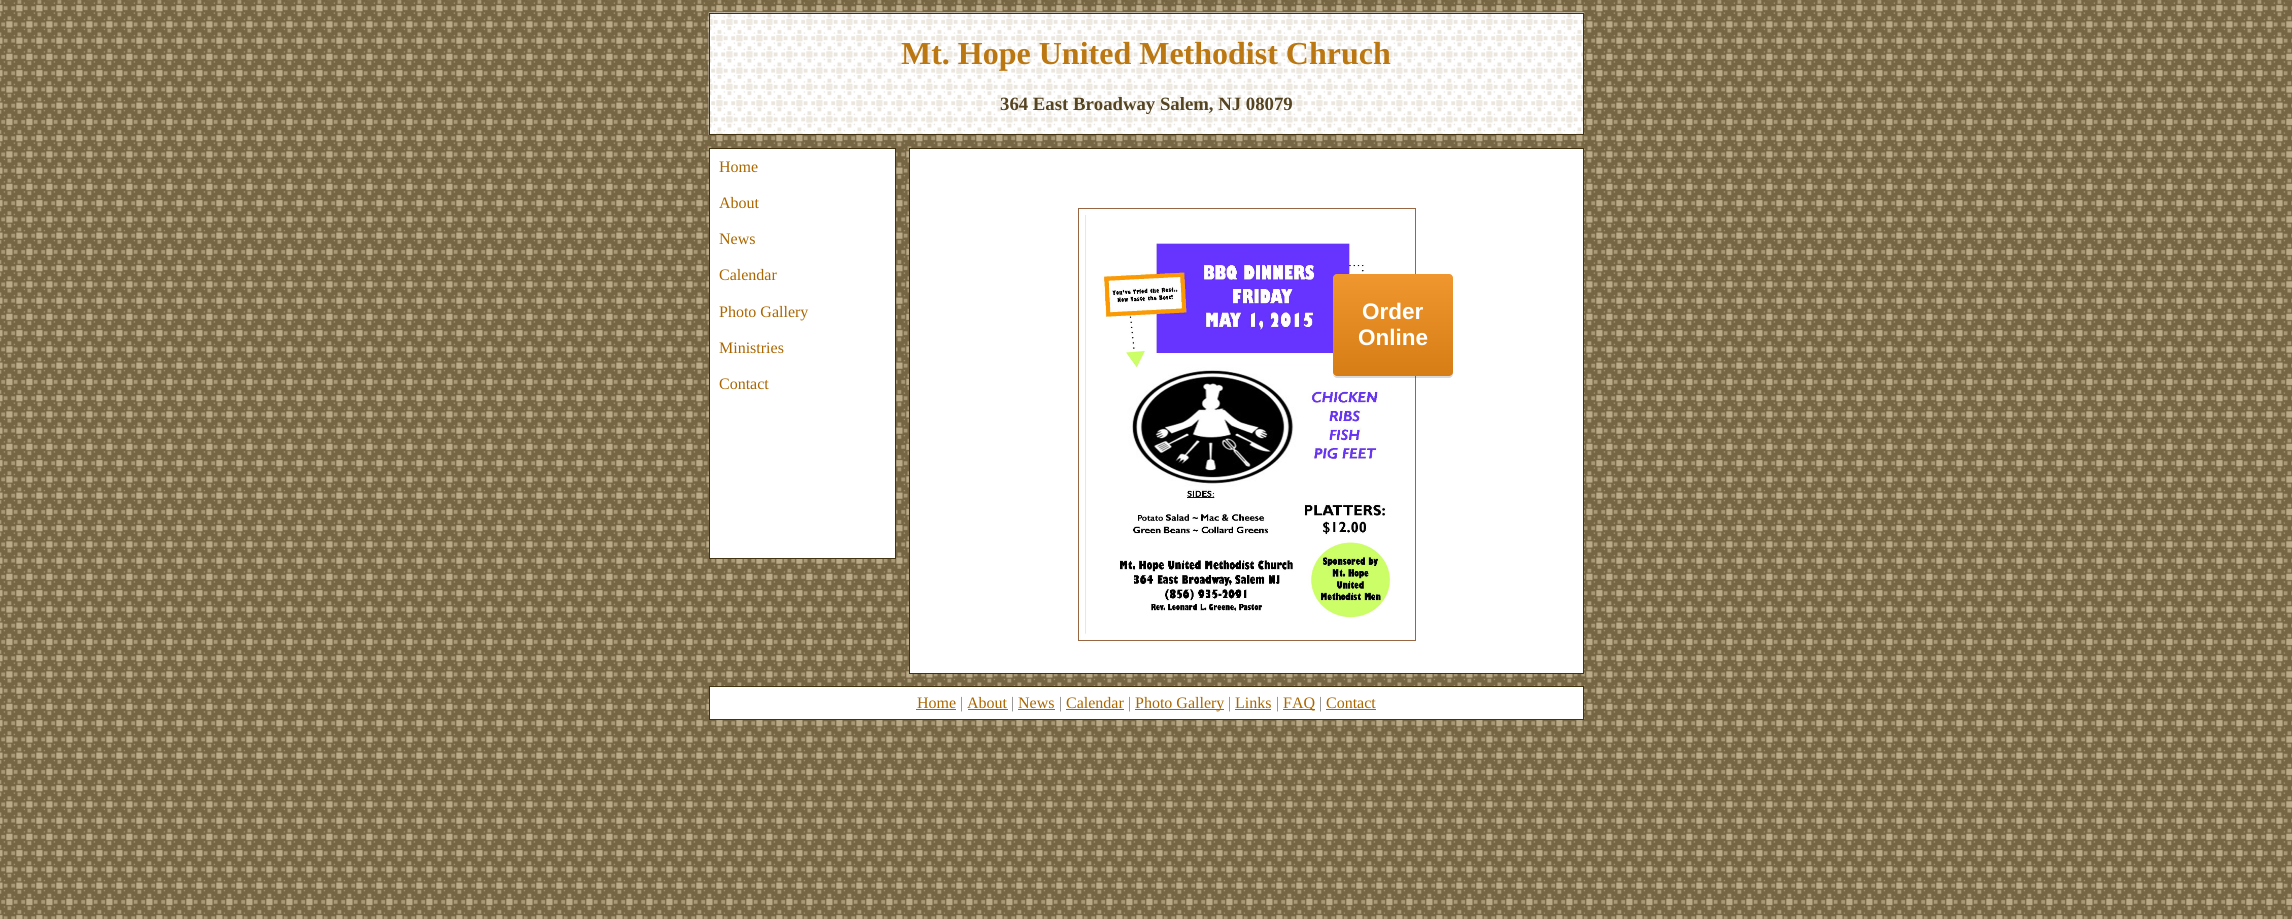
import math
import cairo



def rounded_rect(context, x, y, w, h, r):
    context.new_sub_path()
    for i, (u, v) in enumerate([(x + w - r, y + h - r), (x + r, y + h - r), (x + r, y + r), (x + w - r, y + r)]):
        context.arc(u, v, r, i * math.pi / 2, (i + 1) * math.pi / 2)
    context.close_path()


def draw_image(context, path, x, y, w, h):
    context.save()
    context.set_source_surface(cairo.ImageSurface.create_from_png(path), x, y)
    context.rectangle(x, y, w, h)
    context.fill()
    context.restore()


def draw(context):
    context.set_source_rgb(1, 1, 1)
    context.paint()
    draw_image(context, "images/1.png", 0, 0, 2292, 919)
    draw_image(context, "images/2.png", 708, 12, 876, 123)
    context.rectangle(709.5, 13.5, 874, 121)
    context.set_source_rgb(68 / 255, 51 / 255, 17 / 255)
    context.set_line_width(1)
    context.stroke()
    context.set_source_rgb(1, 1, 1)
    context.rectangle(709.5, 148.5, 186, 410)
    context.fill_preserve()
    context.set_source_rgb(68 / 255, 51 / 255, 17 / 255)
    context.stroke()
    context.set_source_rgb(1, 1, 1)
    context.rectangle(909.5, 148.5, 674, 525)
    context.fill_preserve()
    context.set_source_rgb(68 / 255, 51 / 255, 17 / 255)
    context.stroke()
    context.rectangle(1078.5, 208.5, 337, 432)
    context.set_source_rgb(153 / 255, 102 / 255, 68 / 255)
    context.stroke()
    draw_image(context, "images/3.png", 1085, 215, 308, 419)
    context.set_source_rgba(0, 0, 0, 0.15)
    context.new_path()
    context.move_to(1333, 374)
    context.curve_to(1333, 376, 1335, 378, 1337, 378)
    context.line_to(1449, 378)
    context.curve_to(1451, 378, 1453, 376, 1453, 374)
    context.line_to(1453, 279)
    context.line_to(1452, 277)
    context.line_to(1452, 372)
    context.curve_to(1452, 375, 1451, 376, 1449, 376)
    context.line_to(1336, 376)
    context.curve_to(1335, 376, 1334, 376, 1333, 374)
    context.close_path()
    context.fill()
    context.set_source_rgb(239 / 255, 139 / 255, 23 / 255)
    rounded_rect(context, 1333, 274, 120, 102, 4)
    context.fill()
    gradient = cairo.LinearGradient(1393, 376, 1393, 274)
    gradient.add_color_stop_rgba(0, 0, 0, 0, 0.1)
    gradient.add_color_stop_rgba(1, 1, 1, 1, 0.1)
    context.set_source(gradient)
    rounded_rect(context, 1333, 274, 120, 102, 4)
    context.fill()
    context.set_source_rgb(1, 1, 1)
    context.rectangle(709.5, 686.5, 874, 33)
    context.fill_preserve()
    context.set_source_rgb(68 / 255, 51 / 255, 17 / 255)
    context.stroke()
    context.set_source_rgb(170 / 255, 102 / 255, 0)
    context.rectangle(916, 709, 40, 1)
    context.fill()
    context.rectangle(968, 709, 40, 1)
    context.fill()
    context.rectangle(1018, 709, 37, 1)
    context.fill()
    context.rectangle(1066, 709, 58, 1)
    context.fill()
    context.rectangle(1135, 709, 89, 1)
    context.fill()
    context.rectangle(1235, 709, 36, 1)
    context.fill()
    context.rectangle(1283, 709, 32, 1)
    context.fill()
    context.rectangle(1326, 709, 50, 1)
    context.fill()
    context.select_font_face("Liberation Serif", cairo.FontSlant.NORMAL, cairo.FontWeight.BOLD)
    context.set_font_size(32)
    context.set_source_rgb(187 / 255, 119 / 255, 17 / 255)
    context.move_to(901, 64)
    context.show_text("Mt. Hope United Methodist Chruch")
    context.set_font_size(18.75)
    context.set_source_rgb(85 / 255, 68 / 255, 34 / 255)
    context.move_to(1000, 110)
    context.show_text("364 East Broadway Salem, NJ 08079")
    context.select_font_face("Liberation Serif")
    context.set_font_size(16)
    context.set_source_rgb(170 / 255, 102 / 255, 0)
    context.move_to(719, 172)
    context.show_text("Home")
    context.move_to(719, 208)
    context.show_text("About")
    context.move_to(719, 244)
    context.show_text("News")
    context.move_to(719, 280)
    context.show_text("Calendar")
    context.move_to(719, 317)
    context.show_text("Photo Gallery")
    context.move_to(719, 353)
    context.show_text("Ministries")
    context.move_to(719, 389)
    context.show_text("Contact")
    context.select_font_face("Liberation Sans", cairo.FontSlant.NORMAL, cairo.FontWeight.BOLD)
    context.set_font_size(22.5)
    context.set_source_rgb(1, 1, 1)
    context.move_to(1362, 319)
    context.show_text("Order")
    context.move_to(1358, 345)
    context.show_text("Online")
    context.select_font_face("Liberation Serif")
    context.set_font_size(16)
    context.set_source_rgb(170 / 255, 102 / 255, 0)
    context.move_to(917, 708)
    context.show_text("Home")
    context.set_source_rgb(128 / 255, 128 / 255, 128 / 255)
    context.move_to(960, 708)
    context.show_text("|")
    context.set_source_rgb(170 / 255, 102 / 255, 0)
    context.move_to(967, 708)
    context.show_text("About")
    context.set_source_rgb(128 / 255, 128 / 255, 128 / 255)
    context.move_to(1011, 708)
    context.show_text("|")
    context.set_source_rgb(170 / 255, 102 / 255, 0)
    context.move_to(1018, 708)
    context.show_text("News")
    context.set_source_rgb(128 / 255, 128 / 255, 128 / 255)
    context.move_to(1059, 708)
    context.show_text("|")
    context.set_source_rgb(170 / 255, 102 / 255, 0)
    context.move_to(1066, 708)
    context.show_text("Calendar")
    context.set_source_rgb(128 / 255, 128 / 255, 128 / 255)
    context.move_to(1128, 708)
    context.show_text("|")
    context.set_source_rgb(170 / 255, 102 / 255, 0)
    context.move_to(1135, 708)
    context.show_text("Photo Gallery")
    context.set_source_rgb(128 / 255, 128 / 255, 128 / 255)
    context.move_to(1228, 708)
    context.show_text("|")
    context.set_source_rgb(170 / 255, 102 / 255, 0)
    context.move_to(1235, 708)
    context.show_text("Links")
    context.set_source_rgb(128 / 255, 128 / 255, 128 / 255)
    context.move_to(1276, 708)
    context.show_text("|")
    context.set_source_rgb(170 / 255, 102 / 255, 0)
    context.move_to(1283, 708)
    context.show_text("FAQ")
    context.set_source_rgb(128 / 255, 128 / 255, 128 / 255)
    context.move_to(1319, 708)
    context.show_text("|")
    context.set_source_rgb(170 / 255, 102 / 255, 0)
    context.move_to(1326, 708)
    context.show_text("Contact")


surface = cairo.ImageSurface(cairo.Format.RGB24, 2292, 919)
context = cairo.Context(surface)
options = cairo.FontOptions()
options.set_hint_metrics(cairo.HintMetrics.OFF)
options.set_hint_style(cairo.HintStyle.NONE)
context.set_font_options(options)
context.set_miter_limit(4)
draw(context)
surface.write_to_png("out.png")
